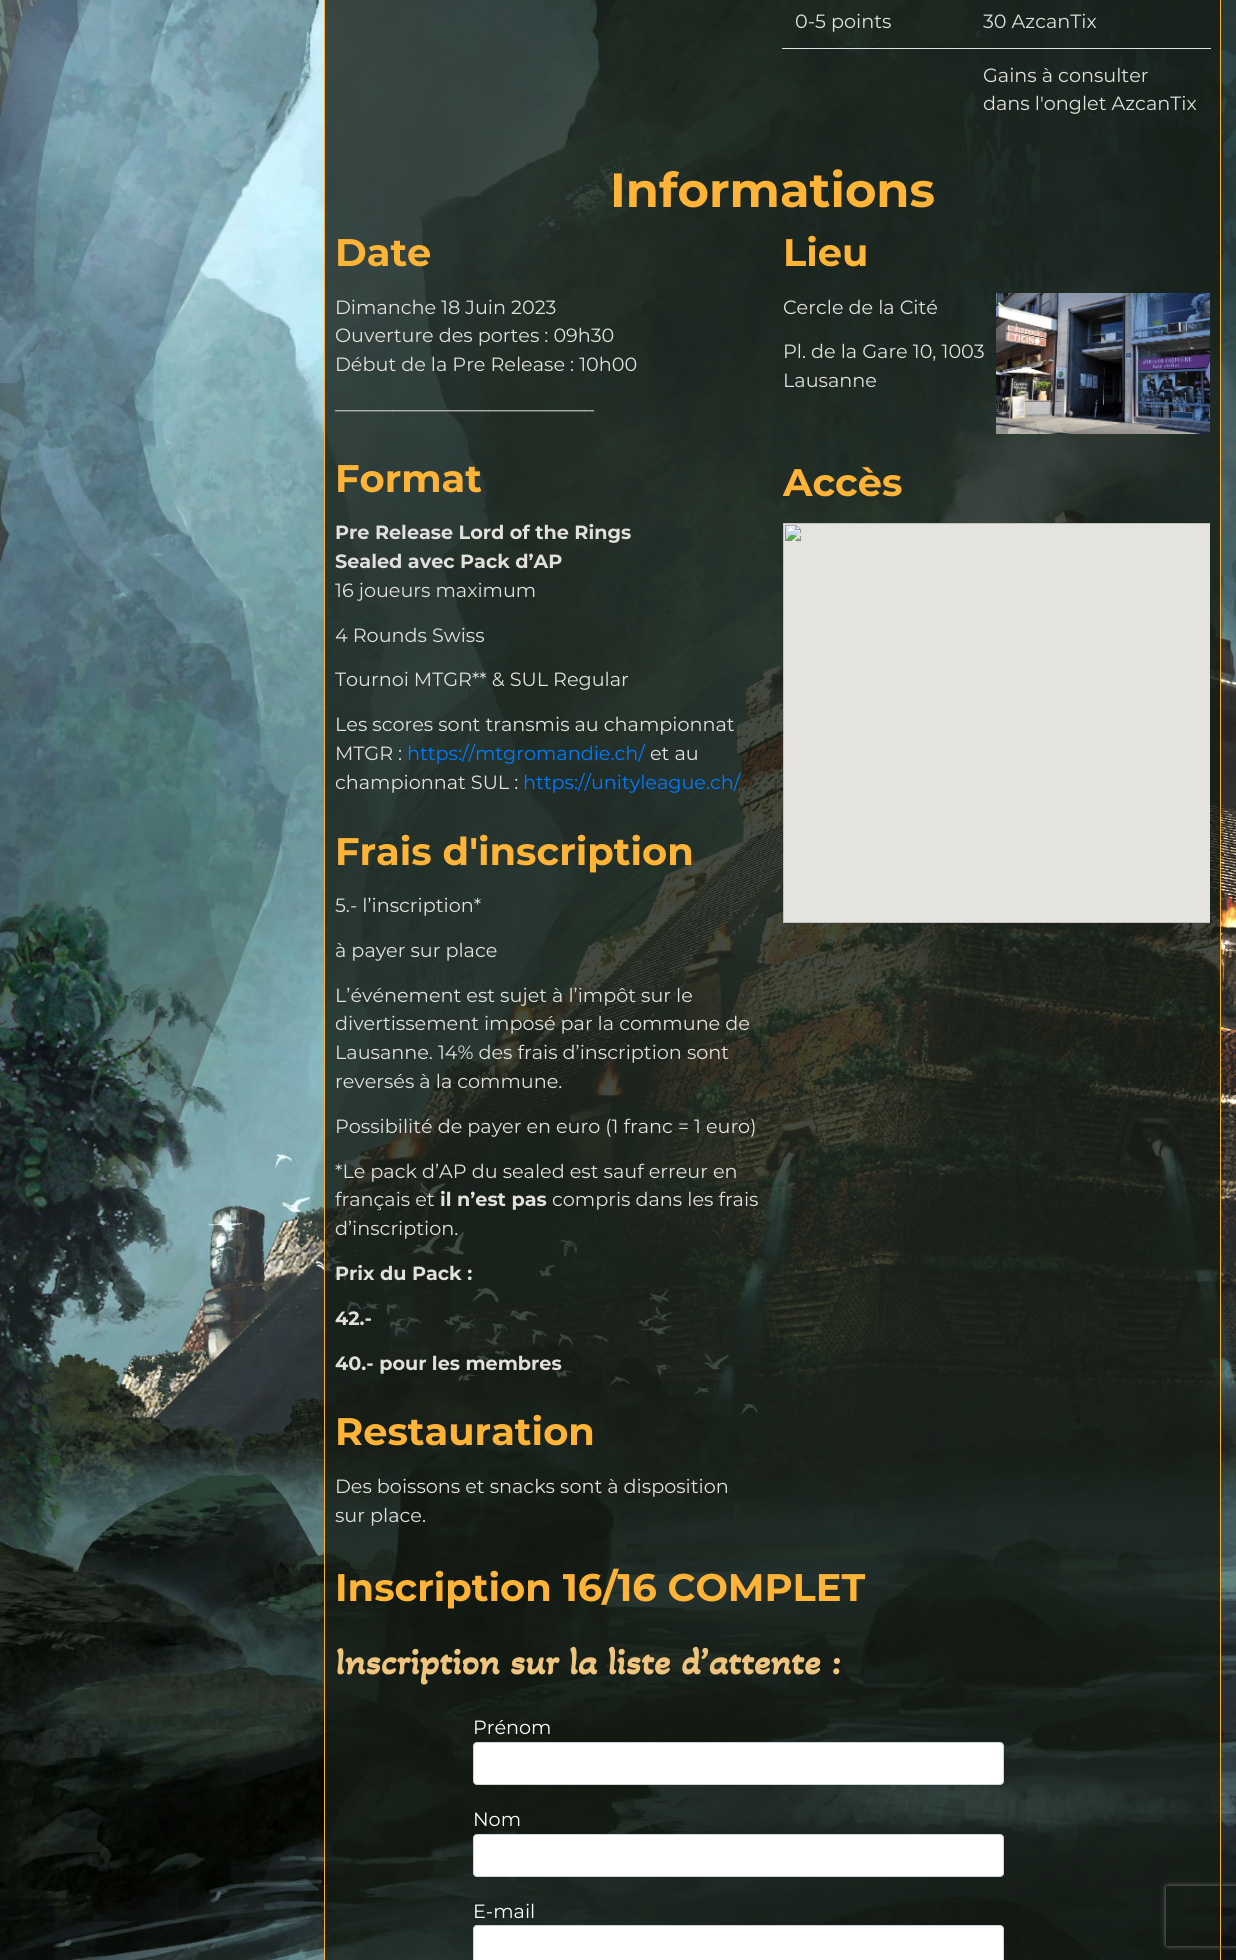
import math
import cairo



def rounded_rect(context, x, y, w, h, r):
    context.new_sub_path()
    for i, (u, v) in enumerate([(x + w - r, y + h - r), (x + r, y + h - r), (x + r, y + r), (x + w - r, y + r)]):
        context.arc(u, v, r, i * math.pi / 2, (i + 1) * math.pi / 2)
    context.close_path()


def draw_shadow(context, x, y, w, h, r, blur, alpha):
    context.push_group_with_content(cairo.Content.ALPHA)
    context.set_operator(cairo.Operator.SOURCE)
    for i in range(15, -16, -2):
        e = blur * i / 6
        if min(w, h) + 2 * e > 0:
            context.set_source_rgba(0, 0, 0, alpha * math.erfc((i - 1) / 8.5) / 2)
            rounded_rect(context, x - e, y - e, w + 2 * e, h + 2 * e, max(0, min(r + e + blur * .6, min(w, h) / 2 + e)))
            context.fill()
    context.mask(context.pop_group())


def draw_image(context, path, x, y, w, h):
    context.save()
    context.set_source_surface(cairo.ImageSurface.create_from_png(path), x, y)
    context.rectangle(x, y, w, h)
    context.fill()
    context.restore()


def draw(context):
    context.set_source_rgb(1, 1, 1)
    context.paint()
    draw_image(context, "images/1.png", 0, 0, 1236, 1960)
    context.set_source_rgba(21 / 255, 28 / 255, 20 / 255, 0.8)
    context.rectangle(324.5, -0.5, 896, 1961)
    context.fill_preserve()
    context.set_source_rgb(1, 180 / 255, 55 / 255)
    context.set_line_width(1)
    context.stroke()
    context.set_source_rgb(222 / 255, 226 / 255, 230 / 255)
    context.rectangle(782, 48, 429, 1)
    context.fill()
    draw_image(context, "images/2.png", 996, 293, 214, 141)
    draw_image(context, "images/3.png", 783, 523, 427, 400)
    context.set_source_rgb(1, 1, 1)
    rounded_rect(context, 473.5, 1742.5, 530, 42, 3.5)
    context.fill_preserve()
    context.set_source_rgb(206 / 255, 212 / 255, 218 / 255)
    context.stroke()
    context.set_source_rgb(1, 1, 1)
    rounded_rect(context, 473.5, 1834.5, 530, 42, 3.5)
    context.fill_preserve()
    context.set_source_rgb(206 / 255, 212 / 255, 218 / 255)
    context.stroke()
    context.set_source_rgb(1, 1, 1)
    rounded_rect(context, 473.5, 1925.5, 530, 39, 3.5)
    context.fill_preserve()
    context.set_source_rgb(206 / 255, 212 / 255, 218 / 255)
    context.stroke()
    context.save()
    context.set_fill_rule(cairo.FillRule.EVEN_ODD)
    context.new_path()
    context.move_to(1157, 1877)
    context.line_to(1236, 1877)
    context.line_to(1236, 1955)
    context.line_to(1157, 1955)
    context.close_path()
    context.move_to(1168, 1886)
    context.line_to(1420, 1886)
    context.curve_to(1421, 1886, 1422, 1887, 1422, 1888)
    context.line_to(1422, 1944)
    context.curve_to(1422, 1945, 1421, 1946, 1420, 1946)
    context.line_to(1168, 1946)
    context.curve_to(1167, 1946, 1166, 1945, 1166, 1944)
    context.line_to(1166, 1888)
    context.curve_to(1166, 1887, 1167, 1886, 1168, 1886)
    context.close_path()
    context.clip()
    context.set_source_rgb(128 / 255, 128 / 255, 128 / 255)
    draw_shadow(context, 1166, 1886, 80, 60, 2, 2.5, 1)
    context.restore()
    context.select_font_face("Montserrat")
    context.set_font_size(19.2)
    context.set_source_rgb(225 / 255, 224 / 255, 221 / 255)
    context.move_to(795, 28)
    context.show_text("0-5 points")
    context.move_to(983, 28)
    context.show_text("30 AzcanTix")
    context.move_to(983, 82)
    context.show_text("Gains à consulter")
    context.move_to(983, 110)
    context.show_text("dans l'onglet AzcanTix")
    context.select_font_face("Montserrat", cairo.FontSlant.NORMAL, cairo.FontWeight.BOLD)
    context.set_font_size(48)
    context.set_source_rgb(1, 180 / 255, 55 / 255)
    context.move_to(610, 207)
    context.show_text("Informations")
    context.set_font_size(38.4)
    context.move_to(335, 266)
    context.show_text("Date")
    context.select_font_face("Montserrat")
    context.set_font_size(19.2)
    context.set_source_rgb(225 / 255, 224 / 255, 221 / 255)
    context.move_to(335, 314)
    context.show_text("Dimanche 18 Juin 2023")
    context.move_to(335, 342)
    context.show_text("Ouverture des portes : 09h30")
    context.move_to(335, 371)
    context.show_text("Début de la Pre Release : 10h00")
    context.move_to(335, 416)
    context.show_text("—————————————–")
    context.select_font_face("Montserrat", cairo.FontSlant.NORMAL, cairo.FontWeight.BOLD)
    context.set_font_size(38.4)
    context.set_source_rgb(1, 180 / 255, 55 / 255)
    context.move_to(335, 492)
    context.show_text("Format")
    context.set_font_size(19.2)
    context.set_source_rgb(225 / 255, 224 / 255, 221 / 255)
    context.move_to(335, 539)
    context.show_text("Pre Release Lord of the Rings")
    context.move_to(335, 568)
    context.show_text("Sealed avec Pack d’AP")
    context.select_font_face("Montserrat")
    context.move_to(335, 597)
    context.show_text("16 joueurs maximum")
    context.move_to(335, 642)
    context.show_text("4 Rounds Swiss")
    context.move_to(335, 686)
    context.show_text("Tournoi MTGR** & SUL Regular")
    context.move_to(335, 731)
    context.show_text("Les scores sont transmis au championnat")
    context.move_to(335, 760)
    context.show_text("MTGR :")
    context.set_source_rgb(0, 123 / 255, 1)
    context.move_to(407, 760)
    context.show_text("https://mtgromandie.ch/")
    context.set_source_rgb(225 / 255, 224 / 255, 221 / 255)
    context.move_to(650, 760)
    context.show_text("et au")
    context.move_to(335, 789)
    context.show_text("championnat SUL :")
    context.set_source_rgb(0, 123 / 255, 1)
    context.move_to(523, 789)
    context.show_text("https://unityleague.ch/")
    context.select_font_face("Montserrat", cairo.FontSlant.NORMAL, cairo.FontWeight.BOLD)
    context.set_font_size(38.4)
    context.set_source_rgb(1, 180 / 255, 55 / 255)
    context.move_to(335, 865)
    context.show_text("Frais d'inscription")
    context.select_font_face("Montserrat")
    context.set_font_size(19.2)
    context.set_source_rgb(225 / 255, 224 / 255, 221 / 255)
    context.move_to(335, 912)
    context.show_text("5.- l’inscription*")
    context.move_to(335, 957)
    context.show_text("à payer sur place")
    context.move_to(335, 1002)
    context.show_text("L’événement est sujet à l’impôt sur le")
    context.move_to(335, 1030)
    context.show_text("divertissement imposé par la commune de")
    context.move_to(335, 1059)
    context.show_text("Lausanne. 14% des frais d’inscription sont")
    context.move_to(335, 1088)
    context.show_text("reversés à la commune.")
    context.move_to(335, 1133)
    context.show_text("Possibilité de payer en euro (1 franc = 1 euro)")
    context.move_to(335, 1178)
    context.show_text("*Le pack d’AP du sealed est sauf erreur en")
    context.move_to(335, 1206)
    context.show_text("français et")
    context.select_font_face("Montserrat", cairo.FontSlant.NORMAL, cairo.FontWeight.BOLD)
    context.move_to(440, 1206)
    context.show_text("il n’est pas")
    context.select_font_face("Montserrat")
    context.move_to(552, 1206)
    context.show_text("compris dans les frais")
    context.move_to(335, 1235)
    context.show_text("d’inscription.")
    context.select_font_face("Montserrat", cairo.FontSlant.NORMAL, cairo.FontWeight.BOLD)
    context.move_to(335, 1280)
    context.show_text("Prix du Pack :")
    context.move_to(335, 1325)
    context.show_text("42.-")
    context.move_to(335, 1370)
    context.show_text("40.- pour les membres")
    context.set_font_size(38.4)
    context.set_source_rgb(1, 180 / 255, 55 / 255)
    context.move_to(335, 1445)
    context.show_text("Restauration")
    context.select_font_face("Montserrat")
    context.set_font_size(19.2)
    context.set_source_rgb(225 / 255, 224 / 255, 221 / 255)
    context.move_to(335, 1493)
    context.show_text("Des boissons et snacks sont à disposition")
    context.move_to(335, 1522)
    context.show_text("sur place.")
    context.select_font_face("Montserrat", cairo.FontSlant.NORMAL, cairo.FontWeight.BOLD)
    context.set_font_size(38.4)
    context.set_source_rgb(1, 180 / 255, 55 / 255)
    context.move_to(783, 266)
    context.show_text("Lieu")
    context.select_font_face("Montserrat")
    context.set_font_size(19.2)
    context.set_source_rgb(225 / 255, 224 / 255, 221 / 255)
    context.move_to(783, 314)
    context.show_text("Cercle de la Cité")
    context.move_to(783, 358)
    context.show_text("Pl. de la Gare 10, 1003")
    context.move_to(783, 387)
    context.show_text("Lausanne")
    context.select_font_face("Montserrat", cairo.FontSlant.NORMAL, cairo.FontWeight.BOLD)
    context.set_font_size(38.4)
    context.set_source_rgb(1, 180 / 255, 55 / 255)
    context.move_to(783, 496)
    context.show_text("Accès")
    context.move_to(335, 1601)
    context.show_text("Inscription 16/16 COMPLET")
    context.select_font_face("Akaya Kanadaka", cairo.FontSlant.NORMAL, cairo.FontWeight.BOLD)
    context.set_source_rgb(239 / 255, 196 / 255, 125 / 255)
    context.move_to(335, 1674)
    context.show_text("Inscription sur la liste d’attente :")
    context.select_font_face("Montserrat")
    context.set_font_size(19.2)
    context.set_source_rgb(1, 1, 1)
    context.move_to(473, 1734)
    context.show_text("Prénom")
    context.move_to(473, 1826)
    context.show_text("Nom")
    context.move_to(473, 1918)
    context.show_text("E-mail")


surface = cairo.ImageSurface(cairo.Format.RGB24, 1236, 1960)
context = cairo.Context(surface)
options = cairo.FontOptions()
options.set_hint_metrics(cairo.HintMetrics.OFF)
options.set_hint_style(cairo.HintStyle.NONE)
context.set_font_options(options)
context.set_miter_limit(4)
draw(context)
surface.write_to_png("out.png")
